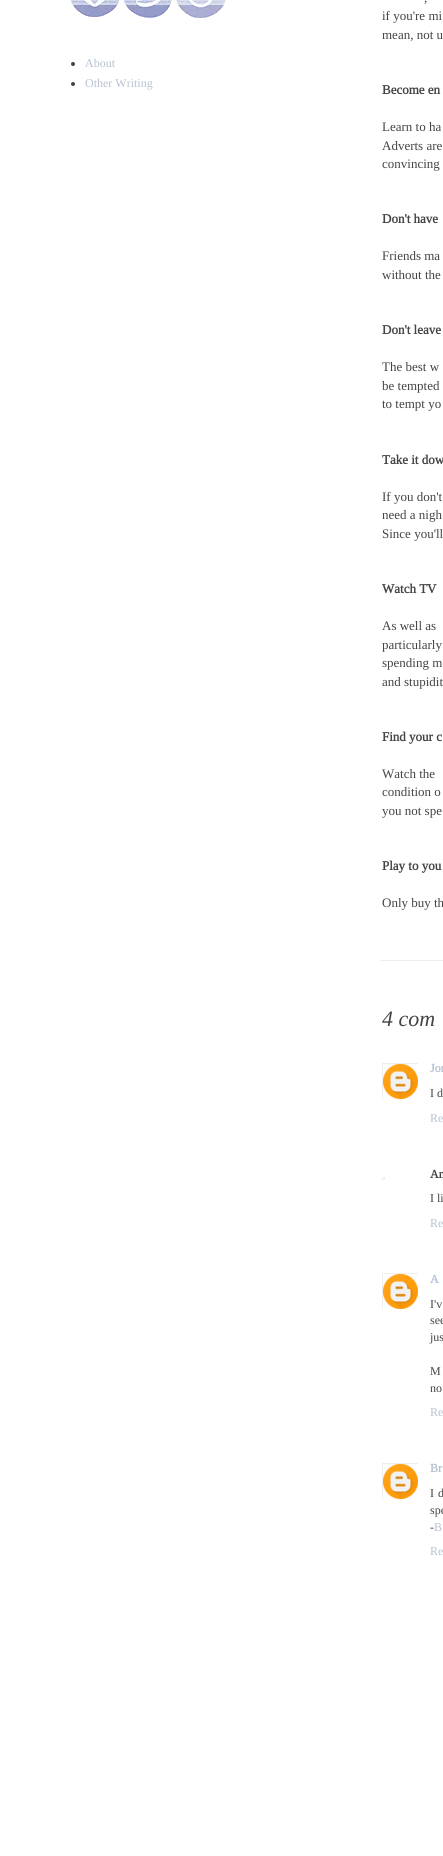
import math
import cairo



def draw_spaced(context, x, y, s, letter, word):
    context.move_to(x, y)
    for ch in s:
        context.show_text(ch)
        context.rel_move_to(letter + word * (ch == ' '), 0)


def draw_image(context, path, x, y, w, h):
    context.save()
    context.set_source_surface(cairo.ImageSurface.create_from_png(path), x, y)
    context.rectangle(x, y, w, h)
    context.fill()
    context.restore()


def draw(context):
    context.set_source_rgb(1, 1, 1)
    context.paint()
    draw_image(context, "images/1.png", 70, 0, 50, 17)
    draw_image(context, "images/2.png", 123, 0, 49, 18)
    draw_image(context, "images/3.png", 176, 0, 50, 18)
    context.set_source_rgb(68 / 255, 68 / 255, 68 / 255)
    context.arc(73, 64, 2, 0, 2 * math.pi)
    context.fill()
    context.arc(73, 84, 2, 0, 2 * math.pi)
    context.fill()
    context.set_source_rgb(238 / 255, 238 / 255, 238 / 255)
    context.rectangle(380, 960, 63, 1)
    context.fill()
    context.save()
    context.rectangle(382, 1063, 36, 36)
    context.clip()
    context.rectangle(382.5, 1063.5, 36, 36)
    context.set_line_width(1)
    context.stroke()
    context.restore()
    draw_image(context, "images/4.png", 383, 1064, 35, 35)
    context.rectangle(382.5, 1177.5, 2, 2)
    context.set_line_width(1)
    context.stroke()
    context.save()
    context.rectangle(382, 1273, 36, 36)
    context.clip()
    context.rectangle(382.5, 1273.5, 36, 36)
    context.stroke()
    context.restore()
    draw_image(context, "images/4.png", 383, 1274, 35, 35)
    context.save()
    context.rectangle(382, 1463, 36, 36)
    context.clip()
    context.rectangle(382.5, 1463.5, 36, 36)
    context.stroke()
    context.restore()
    draw_image(context, "images/4.png", 383, 1464, 35, 35)
    context.select_font_face("Tinos")
    context.set_font_size(12)
    context.set_source_rgb(182 / 255, 194 / 255, 208 / 255)
    context.move_to(85, 67)
    context.show_text("About")
    context.move_to(85, 87)
    context.show_text("Other Writing")
    context.set_font_size(13)
    context.set_source_rgb(68 / 255, 68 / 255, 68 / 255)
    context.move_to(424, 2)
    context.show_text(",")
    context.move_to(382, 20)
    context.show_text("if you're mi")
    context.move_to(382, 39)
    context.show_text("mean, not u")
    context.select_font_face("Tinos", cairo.FontSlant.NORMAL, cairo.FontWeight.BOLD)
    context.move_to(382, 94)
    context.show_text("Become en")
    context.select_font_face("Tinos")
    context.move_to(382, 131)
    context.show_text("Learn to ha")
    context.move_to(382, 150)
    context.show_text("Adverts are")
    context.move_to(382, 168)
    context.show_text("convincing")
    context.select_font_face("Tinos", cairo.FontSlant.NORMAL, cairo.FontWeight.BOLD)
    context.move_to(382, 223)
    context.show_text("Don't have")
    context.select_font_face("Tinos")
    context.move_to(382, 260)
    context.show_text("Friends ma")
    context.move_to(382, 279)
    context.show_text("without the")
    context.select_font_face("Tinos", cairo.FontSlant.NORMAL, cairo.FontWeight.BOLD)
    context.move_to(382, 334)
    context.show_text("Don't leave")
    context.select_font_face("Tinos")
    context.move_to(382, 371)
    context.show_text("The best w")
    context.move_to(382, 390)
    context.show_text("be tempted")
    context.move_to(382, 408)
    context.show_text("to tempt yo")
    context.select_font_face("Tinos", cairo.FontSlant.NORMAL, cairo.FontWeight.BOLD)
    context.move_to(382, 464)
    context.show_text("Take it dow")
    context.select_font_face("Tinos")
    context.move_to(382, 501)
    context.show_text("If you don't")
    context.move_to(382, 519)
    context.show_text("need a nigh")
    context.move_to(382, 538)
    context.show_text("Since you'll")
    context.select_font_face("Tinos", cairo.FontSlant.NORMAL, cairo.FontWeight.BOLD)
    context.move_to(382, 593)
    context.show_text("Watch TV")
    context.select_font_face("Tinos")
    context.move_to(382, 630)
    context.show_text("As well as")
    context.move_to(382, 649)
    context.show_text("particularly")
    context.move_to(382, 667)
    context.show_text("spending m")
    context.move_to(382, 686)
    context.show_text("and stupidit")
    context.select_font_face("Tinos", cairo.FontSlant.NORMAL, cairo.FontWeight.BOLD)
    context.move_to(382, 741)
    context.show_text("Find your c")
    context.select_font_face("Tinos")
    context.move_to(382, 778)
    context.show_text("Watch the")
    context.move_to(382, 796)
    context.show_text("condition o")
    context.move_to(382, 815)
    context.show_text("you not spe")
    context.select_font_face("Tinos", cairo.FontSlant.NORMAL, cairo.FontWeight.BOLD)
    context.move_to(382, 870)
    context.show_text("Play to you")
    context.select_font_face("Tinos")
    context.move_to(382, 907)
    context.show_text("Only buy th")
    context.select_font_face("Liberation Serif", cairo.FontSlant.ITALIC)
    context.set_font_size(22)
    context.move_to(382, 1026)
    context.show_text("4 com")
    context.select_font_face("Tinos", cairo.FontSlant.NORMAL, cairo.FontWeight.BOLD)
    context.set_font_size(12)
    context.set_source_rgb(182 / 255, 194 / 255, 208 / 255)
    context.move_to(430, 1072)
    context.show_text("Jor")
    context.select_font_face("Tinos")
    context.set_source_rgb(68 / 255, 68 / 255, 68 / 255)
    context.move_to(430, 1097)
    context.show_text("I d")
    context.set_source_rgb(182 / 255, 194 / 255, 208 / 255)
    context.move_to(430, 1122)
    context.show_text("Re")
    context.select_font_face("Tinos", cairo.FontSlant.NORMAL, cairo.FontWeight.BOLD)
    context.set_source_rgb(68 / 255, 68 / 255, 68 / 255)
    context.move_to(430, 1178)
    context.show_text("An")
    context.select_font_face("Tinos")
    context.move_to(430, 1202)
    context.show_text("I li")
    context.set_source_rgb(182 / 255, 194 / 255, 208 / 255)
    context.move_to(430, 1227)
    context.show_text("Re")
    context.select_font_face("Tinos", cairo.FontSlant.NORMAL, cairo.FontWeight.BOLD)
    context.move_to(430, 1283)
    context.show_text("A")
    context.select_font_face("Tinos")
    context.set_source_rgb(68 / 255, 68 / 255, 68 / 255)
    context.move_to(430, 1308)
    context.show_text("I'v")
    draw_spaced(context, 430, 1324, "see", 0, 1)
    context.move_to(430, 1341)
    context.show_text("jus")
    draw_spaced(context, 430, 1375, "M", 0, 1)
    context.move_to(430, 1392)
    context.show_text("no")
    context.set_source_rgb(182 / 255, 194 / 255, 208 / 255)
    context.move_to(430, 1416)
    context.show_text("Re")
    context.select_font_face("Tinos", cairo.FontSlant.NORMAL, cairo.FontWeight.BOLD)
    context.move_to(430, 1472)
    context.show_text("Br")
    context.select_font_face("Tinos")
    context.set_source_rgb(68 / 255, 68 / 255, 68 / 255)
    draw_spaced(context, 430, 1497, "I d", 0, 1)
    context.move_to(430, 1514)
    context.show_text("spe")
    context.move_to(430, 1531)
    context.show_text("-")
    context.set_source_rgb(182 / 255, 194 / 255, 208 / 255)
    context.move_to(434, 1531)
    context.show_text("B")
    context.move_to(430, 1555)
    context.show_text("Re")


surface = cairo.ImageSurface(cairo.Format.RGB24, 443, 1856)
context = cairo.Context(surface)
options = cairo.FontOptions()
options.set_hint_metrics(cairo.HintMetrics.OFF)
options.set_hint_style(cairo.HintStyle.NONE)
context.set_font_options(options)
context.set_miter_limit(4)
draw(context)
surface.write_to_png("out.png")
